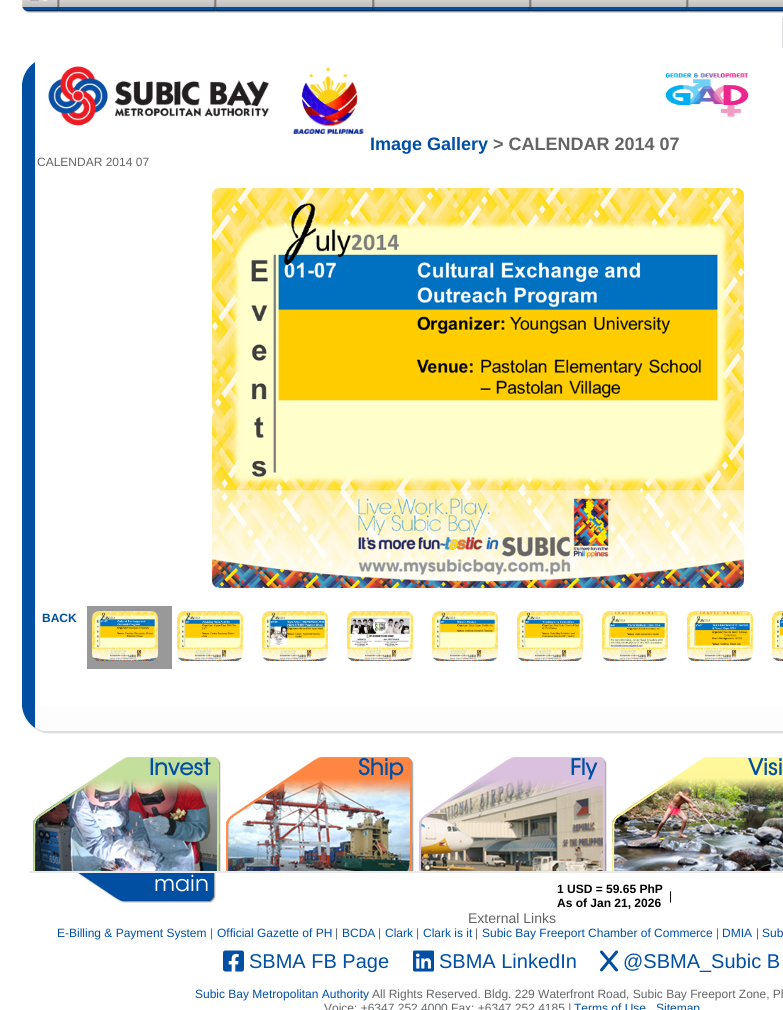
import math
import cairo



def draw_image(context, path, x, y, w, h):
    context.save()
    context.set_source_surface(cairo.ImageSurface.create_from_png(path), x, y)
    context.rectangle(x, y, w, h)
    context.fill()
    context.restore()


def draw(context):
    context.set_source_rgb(1, 1, 1)
    context.paint()
    draw_image(context, "images/1.png", 22, 0, 761, 13)
    draw_image(context, "images/2.png", 30, 0, 20, 1)
    context.rectangle(782.5, 18.5, 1, 29)
    context.set_source_rgb(223 / 255, 225 / 255, 229 / 255)
    context.set_line_width(1)
    context.stroke()
    draw_image(context, "images/3.png", 22, 62, 13, 72)
    draw_image(context, "images/4.png", 48, 66, 60, 60)
    draw_image(context, "images/5.png", 115, 80, 154, 37)
    draw_image(context, "images/6.png", 293, 67, 71, 67)
    draw_image(context, "images/7.png", 665, 73, 84, 44)
    draw_image(context, "images/8.png", 22, 134, 15, 572)
    draw_image(context, "images/9.png", 212, 188, 532, 400)
    context.set_source_rgb(153 / 255, 153 / 255, 153 / 255)
    context.rectangle(87, 606, 85, 63)
    context.fill()
    draw_image(context, "images/10.png", 92, 611, 66, 50)
    draw_image(context, "images/11.png", 177, 611, 66, 50)
    draw_image(context, "images/12.png", 262, 611, 66, 50)
    draw_image(context, "images/13.png", 347, 611, 66, 50)
    draw_image(context, "images/14.png", 432, 611, 66, 50)
    draw_image(context, "images/15.png", 517, 611, 66, 50)
    draw_image(context, "images/16.png", 602, 611, 66, 50)
    draw_image(context, "images/17.png", 687, 611, 66, 50)
    draw_image(context, "images/18.png", 772, 611, 11, 50)
    draw_image(context, "images/19.png", 22, 706, 761, 28)
    draw_image(context, "images/20.png", 29, 871, 754, 2)
    draw_image(context, "images/21.png", 33, 757, 188, 114)
    draw_image(context, "images/22.png", 226, 757, 188, 114)
    draw_image(context, "images/23.png", 419, 757, 188, 114)
    draw_image(context, "images/24.png", 612, 757, 171, 114)
    draw_image(context, "images/25.png", 77, 873, 139, 30)
    draw_image(context, "images/26.png", 223, 950, 21, 22)
    draw_image(context, "images/27.png", 413, 950, 21, 22)
    draw_image(context, "images/28.png", 600, 950, 18, 22)
    context.select_font_face("Liberation Sans", cairo.FontSlant.NORMAL, cairo.FontWeight.BOLD)
    context.set_font_size(18)
    context.set_source_rgb(0, 79 / 255, 163 / 255)
    context.move_to(370, 150)
    context.show_text("Image Gallery")
    context.set_source_rgb(99 / 255, 100 / 255, 102 / 255)
    context.move_to(493, 150)
    context.show_text("> CALENDAR 2014 07")
    context.select_font_face("Liberation Sans")
    context.set_font_size(12)
    context.move_to(37, 166)
    context.show_text("CALENDAR 2014 07")
    context.select_font_face("Liberation Sans", cairo.FontSlant.NORMAL, cairo.FontWeight.BOLD)
    context.set_source_rgb(0, 79 / 255, 163 / 255)
    context.move_to(42, 622)
    context.show_text("BACK")
    context.select_font_face("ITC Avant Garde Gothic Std", cairo.FontSlant.NORMAL, cairo.FontWeight.BOLD)
    context.set_font_size(22)
    context.move_to(149, 775)
    context.show_text("Invest")
    context.move_to(358, 775)
    context.show_text("Ship")
    context.move_to(570, 775)
    context.show_text("Fly")
    context.move_to(748, 775)
    context.show_text("Visi")
    context.select_font_face("ITC Avant Garde Gothic Std Light")
    context.set_source_rgb(1, 1, 1)
    context.move_to(154, 891)
    context.show_text("main")
    context.select_font_face("Liberation Sans", cairo.FontSlant.NORMAL, cairo.FontWeight.BOLD)
    context.set_font_size(12)
    context.set_source_rgb(0, 0, 0)
    context.move_to(557, 893)
    context.show_text("1 USD = 59.65 PhP")
    context.move_to(557, 907)
    context.show_text("As of Jan 21, 2026")
    context.select_font_face("Liberation Sans")
    context.move_to(669, 900)
    context.show_text("|")
    context.set_font_size(14)
    context.set_source_rgb(99 / 255, 100 / 255, 102 / 255)
    context.move_to(468, 923)
    context.show_text("External Links")
    context.set_font_size(12)
    context.set_source_rgb(0, 79 / 255, 163 / 255)
    context.move_to(57, 937)
    context.show_text("E-Billing & Payment System")
    context.set_source_rgb(99 / 255, 100 / 255, 102 / 255)
    context.move_to(210, 937)
    context.show_text("|")
    context.set_source_rgb(0, 79 / 255, 163 / 255)
    context.move_to(217, 937)
    context.show_text("Official Gazette of PH")
    context.set_source_rgb(99 / 255, 100 / 255, 102 / 255)
    context.move_to(335, 937)
    context.show_text("|")
    context.set_source_rgb(0, 79 / 255, 163 / 255)
    context.move_to(342, 937)
    context.show_text("BCDA")
    context.set_source_rgb(99 / 255, 100 / 255, 102 / 255)
    context.move_to(378, 937)
    context.show_text("|")
    context.set_source_rgb(0, 79 / 255, 163 / 255)
    context.move_to(385, 937)
    context.show_text("Clark")
    context.set_source_rgb(99 / 255, 100 / 255, 102 / 255)
    context.move_to(416, 937)
    context.show_text("|")
    context.set_source_rgb(0, 79 / 255, 163 / 255)
    context.move_to(423, 937)
    context.show_text("Clark is it")
    context.set_source_rgb(99 / 255, 100 / 255, 102 / 255)
    context.move_to(475, 937)
    context.show_text("|")
    context.set_source_rgb(0, 79 / 255, 163 / 255)
    context.move_to(482, 937)
    context.show_text("Subic Bay Freeport Chamber of Commerce")
    context.set_source_rgb(99 / 255, 100 / 255, 102 / 255)
    context.move_to(716, 937)
    context.show_text("|")
    context.set_source_rgb(0, 79 / 255, 163 / 255)
    context.move_to(722, 937)
    context.show_text("DMIA")
    context.set_source_rgb(99 / 255, 100 / 255, 102 / 255)
    context.move_to(756, 937)
    context.show_text("|")
    context.set_source_rgb(0, 79 / 255, 163 / 255)
    context.move_to(762, 937)
    context.show_text("Sub")
    context.set_font_size(20)
    context.move_to(249, 968)
    context.show_text("SBMA FB Page")
    context.move_to(439, 968)
    context.show_text("SBMA LinkedIn")
    context.move_to(623, 968)
    context.show_text("@SBMA_Subic B")
    context.set_font_size(12)
    context.move_to(195, 998)
    context.show_text("Subic Bay Metropolitan Authority")
    context.set_source_rgb(99 / 255, 100 / 255, 102 / 255)
    context.move_to(372, 998)
    context.show_text("All Rights Reserved. Bldg. 229 Waterfront Road, Subic Bay Freeport Zone, Ph")
    context.move_to(324, 1012)
    context.show_text("Voice: +6347 252 4000 Fax: +6347 252 4185 |")
    context.set_source_rgb(0, 79 / 255, 163 / 255)
    context.move_to(574, 1012)
    context.show_text("Terms of Use")
    context.move_to(656, 1012)
    context.show_text("Sitemap")


surface = cairo.ImageSurface(cairo.Format.RGB24, 783, 1010)
context = cairo.Context(surface)
options = cairo.FontOptions()
options.set_hint_metrics(cairo.HintMetrics.OFF)
options.set_hint_style(cairo.HintStyle.NONE)
context.set_font_options(options)
context.set_miter_limit(4)
draw(context)
surface.write_to_png("out.png")
